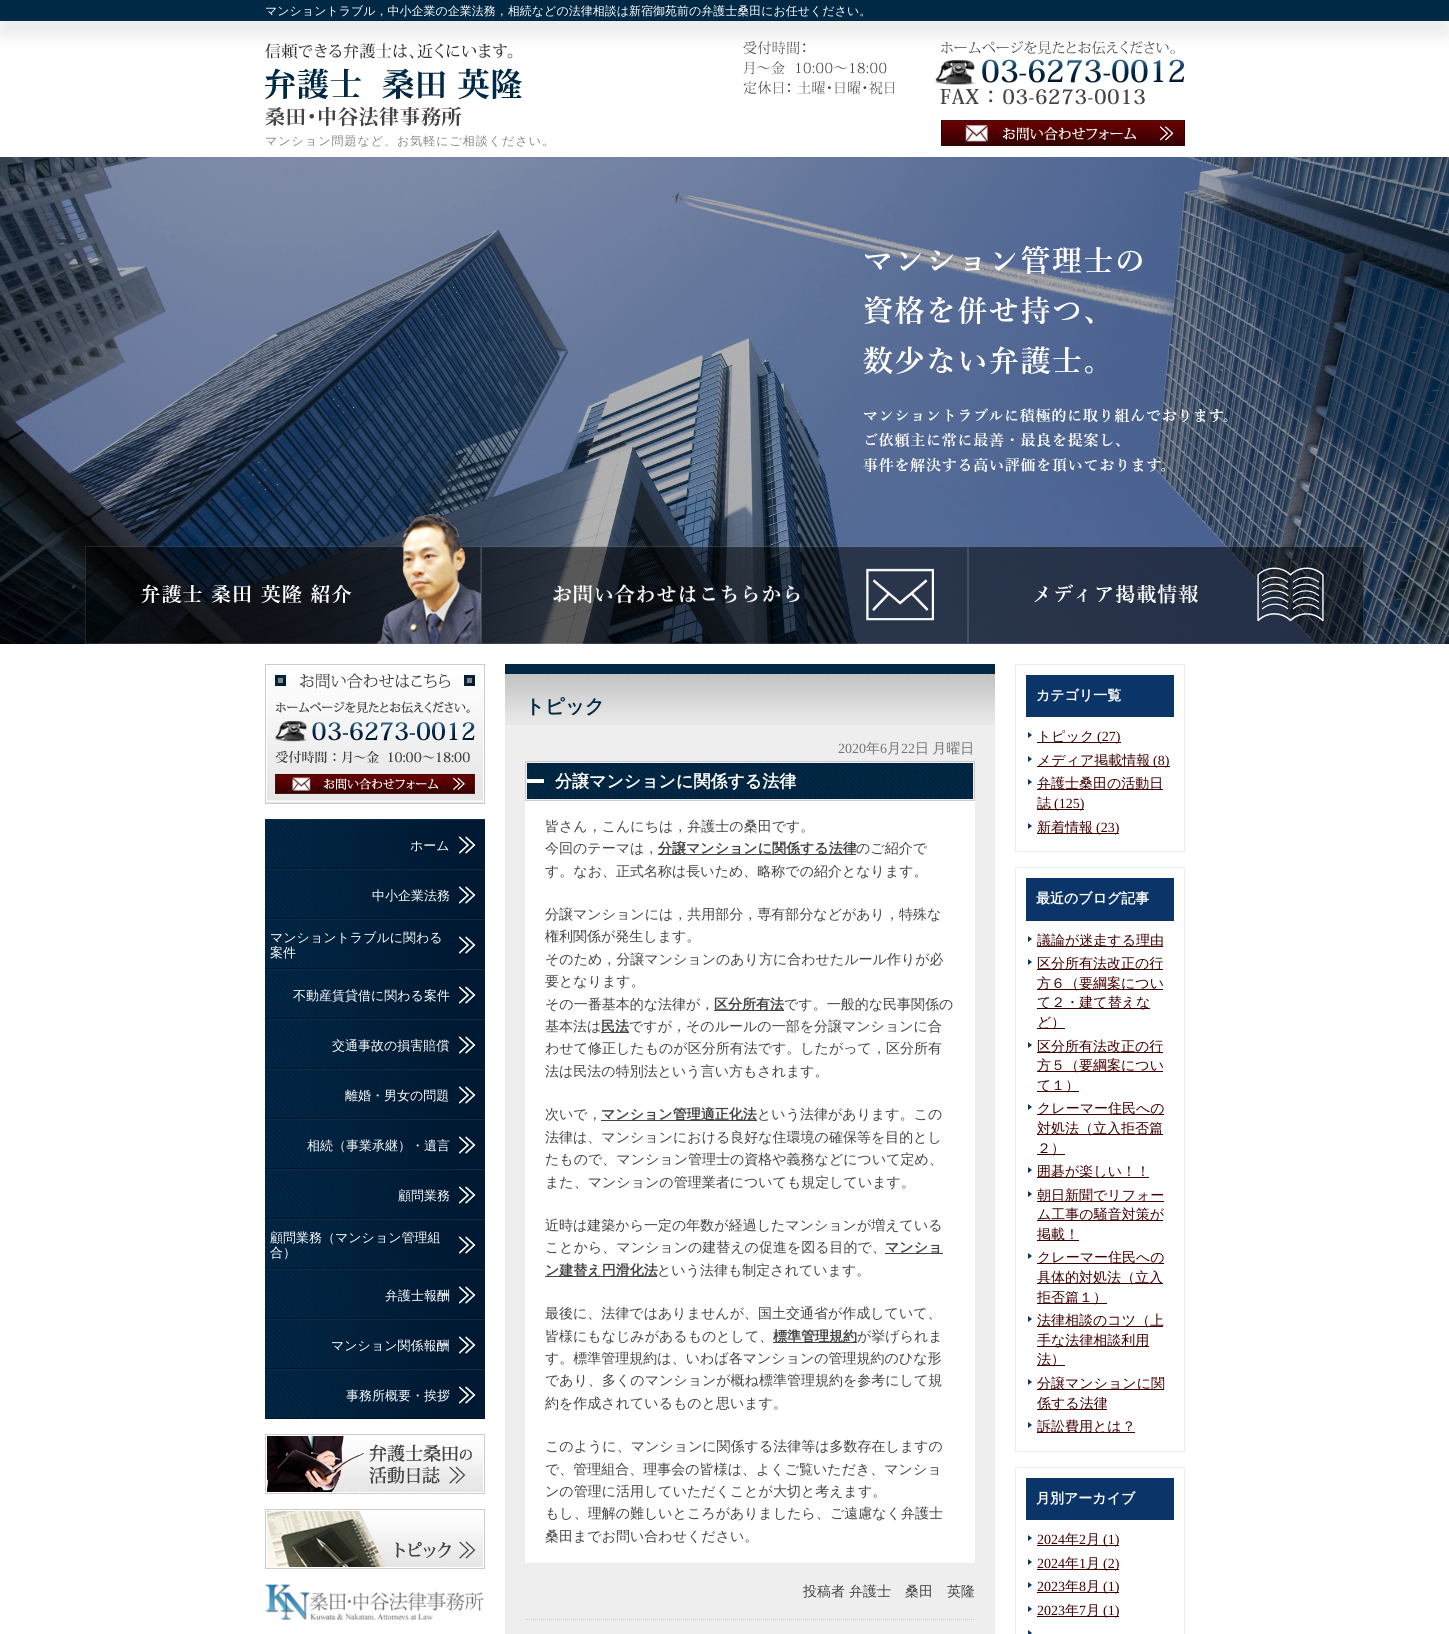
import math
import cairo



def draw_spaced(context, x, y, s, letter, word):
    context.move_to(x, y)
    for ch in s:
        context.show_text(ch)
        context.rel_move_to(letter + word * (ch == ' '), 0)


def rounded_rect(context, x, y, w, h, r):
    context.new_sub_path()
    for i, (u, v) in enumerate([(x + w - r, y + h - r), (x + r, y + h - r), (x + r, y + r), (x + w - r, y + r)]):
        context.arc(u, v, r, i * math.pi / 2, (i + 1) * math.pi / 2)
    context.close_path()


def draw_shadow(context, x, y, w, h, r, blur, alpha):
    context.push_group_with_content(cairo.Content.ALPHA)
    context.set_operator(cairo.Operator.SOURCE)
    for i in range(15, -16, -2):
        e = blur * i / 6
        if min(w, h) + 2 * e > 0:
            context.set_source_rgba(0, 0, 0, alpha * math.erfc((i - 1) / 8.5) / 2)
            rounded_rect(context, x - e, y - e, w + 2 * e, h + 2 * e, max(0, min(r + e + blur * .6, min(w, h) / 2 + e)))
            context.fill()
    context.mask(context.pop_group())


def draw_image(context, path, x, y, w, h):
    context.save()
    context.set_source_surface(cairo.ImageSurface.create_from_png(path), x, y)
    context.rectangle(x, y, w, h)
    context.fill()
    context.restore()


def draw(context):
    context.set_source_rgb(1, 1, 1)
    context.paint()
    context.set_source_rgb(234 / 255, 234 / 255, 234 / 255)
    draw_shadow(context, 0, 14, 1449, 21, 0, 9, 1)
    context.set_source_rgb(0, 41 / 255, 70 / 255)
    context.rectangle(0, 0, 1449, 21)
    context.fill()
    draw_image(context, "images/1.png", 265, 43, 257, 84)
    draw_image(context, "images/2.png", 743, 41, 442, 64)
    draw_image(context, "images/3.png", 941, 120, 244, 26)
    draw_image(context, "images/4.png", 0, 157, 1449, 487)
    draw_image(context, "images/5.png", 863, 246, 365, 226)
    draw_image(context, "images/6.png", 85, 514, 396, 130)
    draw_image(context, "images/7.png", 481, 546, 487, 98)
    draw_image(context, "images/8.png", 968, 546, 396, 98)
    draw_image(context, "images/9.png", 265, 664, 220, 140)
    draw_image(context, "images/10.png", 265, 819, 220, 50)
    draw_image(context, "images/10.png", 265, 869, 220, 50)
    draw_image(context, "images/10.png", 265, 919, 220, 50)
    draw_image(context, "images/10.png", 265, 969, 220, 50)
    draw_image(context, "images/10.png", 265, 1019, 220, 50)
    draw_image(context, "images/10.png", 265, 1069, 220, 50)
    draw_image(context, "images/10.png", 265, 1119, 220, 50)
    draw_image(context, "images/10.png", 265, 1169, 220, 50)
    draw_image(context, "images/10.png", 265, 1219, 220, 50)
    draw_image(context, "images/10.png", 265, 1269, 220, 50)
    draw_image(context, "images/10.png", 265, 1319, 220, 50)
    draw_image(context, "images/10.png", 265, 1369, 220, 50)
    draw_image(context, "images/11.png", 265, 1434, 220, 60)
    draw_image(context, "images/12.png", 265, 1509, 220, 60)
    draw_image(context, "images/13.png", 264, 1584, 220, 37)
    context.set_source_rgb(238 / 255, 238 / 255, 238 / 255)
    context.rectangle(505, 725, 490, 909)
    context.fill()
    draw_image(context, "images/14.png", 505, 664, 490, 61)
    context.rectangle(525.5, 761.5, 449, 39)
    context.set_source_rgb(204 / 255, 204 / 255, 204 / 255)
    context.set_line_width(1)
    context.stroke()
    draw_image(context, "images/15.png", 527, 763, 446, 36)
    context.set_source_rgb(1, 1, 1)
    context.rectangle(527, 779, 17, 4)
    context.fill()
    context.rectangle(525, 801, 450, 762)
    context.fill()
    context.set_source_rgb(68 / 255, 68 / 255, 68 / 255)
    context.rectangle(658, 854, 198, 1)
    context.fill()
    context.rectangle(714, 1010, 70, 1)
    context.fill()
    context.rectangle(601, 1032, 28, 1)
    context.fill()
    context.rectangle(601, 1120, 156, 1)
    context.fill()
    context.rectangle(885, 1253, 58, 1)
    context.fill()
    context.rectangle(545, 1276, 112, 1)
    context.fill()
    context.rectangle(773, 1342, 84, 1)
    context.fill()
    context.new_path()
    context.move_to(525, 1619.5)
    context.line_to(975, 1619.5)
    context.set_source_rgb(204 / 255, 204 / 255, 204 / 255)
    context.set_dash([1, 1])
    context.stroke()
    context.rectangle(1015.5, 664.5, 169, 187)
    context.set_source_rgb(227 / 255, 239 / 255, 1)
    context.set_dash([])
    context.stroke()
    context.set_source_rgb(11 / 255, 53 / 255, 104 / 255)
    context.rectangle(1026, 675, 148, 42)
    context.fill()
    context.new_path()
    context.move_to(1028, 738)
    context.line_to(1028, 732)
    context.line_to(1032, 735)
    context.close_path()
    context.fill()
    context.set_source_rgb(64 / 255, 0, 1 / 255)
    context.rectangle(1037, 742, 84, 1)
    context.fill()
    context.set_source_rgb(11 / 255, 53 / 255, 104 / 255)
    context.new_path()
    context.move_to(1028, 762)
    context.line_to(1028, 756)
    context.line_to(1032, 759)
    context.close_path()
    context.fill()
    context.set_source_rgb(64 / 255, 0, 1 / 255)
    context.rectangle(1037, 766, 133, 1)
    context.fill()
    context.set_source_rgb(11 / 255, 53 / 255, 104 / 255)
    context.new_path()
    context.move_to(1028, 785)
    context.line_to(1028, 779)
    context.line_to(1032, 782)
    context.close_path()
    context.fill()
    context.set_source_rgb(64 / 255, 0, 1 / 255)
    context.rectangle(1037, 789, 126, 1)
    context.fill()
    context.rectangle(1037, 809, 47, 1)
    context.fill()
    context.set_source_rgb(11 / 255, 53 / 255, 104 / 255)
    context.new_path()
    context.move_to(1028, 829)
    context.line_to(1028, 823)
    context.line_to(1032, 826)
    context.close_path()
    context.fill()
    context.set_source_rgb(64 / 255, 0, 1 / 255)
    context.rectangle(1037, 833, 82, 1)
    context.fill()
    context.rectangle(1015.5, 867.5, 169, 584)
    context.set_source_rgb(227 / 255, 239 / 255, 1)
    context.stroke()
    context.set_source_rgb(11 / 255, 53 / 255, 104 / 255)
    context.rectangle(1026, 878, 148, 43)
    context.fill()
    context.new_path()
    context.move_to(1028, 942)
    context.line_to(1028, 936)
    context.line_to(1032, 939)
    context.close_path()
    context.fill()
    context.set_source_rgb(64 / 255, 0, 1 / 255)
    context.rectangle(1037, 946, 126, 1)
    context.fill()
    context.set_source_rgb(11 / 255, 53 / 255, 104 / 255)
    context.new_path()
    context.move_to(1028, 965)
    context.line_to(1028, 959)
    context.line_to(1032, 962)
    context.close_path()
    context.fill()
    context.set_source_rgb(64 / 255, 0, 1 / 255)
    context.rectangle(1037, 969, 126, 1)
    context.fill()
    context.rectangle(1037, 989, 126, 1)
    context.fill()
    context.rectangle(1037, 1008, 113, 1)
    context.fill()
    context.rectangle(1037, 1028, 28, 1)
    context.fill()
    context.set_source_rgb(11 / 255, 53 / 255, 104 / 255)
    context.new_path()
    context.move_to(1028, 1048)
    context.line_to(1028, 1042)
    context.line_to(1032, 1045)
    context.close_path()
    context.fill()
    context.set_source_rgb(64 / 255, 0, 1 / 255)
    context.rectangle(1037, 1052, 126, 1)
    context.fill()
    context.rectangle(1037, 1071, 126, 1)
    context.fill()
    context.rectangle(1037, 1091, 42, 1)
    context.fill()
    context.set_source_rgb(11 / 255, 53 / 255, 104 / 255)
    context.new_path()
    context.move_to(1028, 1110)
    context.line_to(1028, 1104)
    context.line_to(1032, 1107)
    context.close_path()
    context.fill()
    context.set_source_rgb(64 / 255, 0, 1 / 255)
    context.rectangle(1037, 1114, 127, 1)
    context.fill()
    context.rectangle(1037, 1134, 126, 1)
    context.fill()
    context.rectangle(1037, 1154, 28, 1)
    context.fill()
    context.set_source_rgb(11 / 255, 53 / 255, 104 / 255)
    context.new_path()
    context.move_to(1028, 1173)
    context.line_to(1028, 1167)
    context.line_to(1032, 1170)
    context.close_path()
    context.fill()
    context.set_source_rgb(64 / 255, 0, 1 / 255)
    context.rectangle(1037, 1177, 112, 1)
    context.fill()
    context.set_source_rgb(11 / 255, 53 / 255, 104 / 255)
    context.new_path()
    context.move_to(1028, 1197)
    context.line_to(1028, 1191)
    context.line_to(1032, 1194)
    context.close_path()
    context.fill()
    context.set_source_rgb(64 / 255, 0, 1 / 255)
    context.rectangle(1037, 1201, 127, 1)
    context.fill()
    context.rectangle(1037, 1220, 126, 1)
    context.fill()
    context.rectangle(1037, 1240, 42, 1)
    context.fill()
    context.set_source_rgb(11 / 255, 53 / 255, 104 / 255)
    context.new_path()
    context.move_to(1028, 1259)
    context.line_to(1028, 1253)
    context.line_to(1032, 1256)
    context.close_path()
    context.fill()
    context.set_source_rgb(64 / 255, 0, 1 / 255)
    context.rectangle(1037, 1263, 127, 1)
    context.fill()
    context.rectangle(1037, 1283, 126, 1)
    context.fill()
    context.rectangle(1037, 1303, 70, 1)
    context.fill()
    context.set_source_rgb(11 / 255, 53 / 255, 104 / 255)
    context.new_path()
    context.move_to(1028, 1322)
    context.line_to(1028, 1316)
    context.line_to(1032, 1319)
    context.close_path()
    context.fill()
    context.set_source_rgb(64 / 255, 0, 1 / 255)
    context.rectangle(1037, 1326, 126, 1)
    context.fill()
    context.rectangle(1037, 1346, 112, 1)
    context.fill()
    context.rectangle(1037, 1365, 28, 1)
    context.fill()
    context.set_source_rgb(11 / 255, 53 / 255, 104 / 255)
    context.new_path()
    context.move_to(1028, 1385)
    context.line_to(1028, 1379)
    context.line_to(1032, 1382)
    context.close_path()
    context.fill()
    context.set_source_rgb(64 / 255, 0, 1 / 255)
    context.rectangle(1037, 1389, 127, 1)
    context.fill()
    context.rectangle(1037, 1409, 70, 1)
    context.fill()
    context.set_source_rgb(11 / 255, 53 / 255, 104 / 255)
    context.new_path()
    context.move_to(1028, 1428)
    context.line_to(1028, 1422)
    context.line_to(1032, 1425)
    context.close_path()
    context.fill()
    context.set_source_rgb(64 / 255, 0, 1 / 255)
    context.rectangle(1037, 1432, 98, 1)
    context.fill()
    context.rectangle(1015.5, 1467.5, 169, 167)
    context.set_source_rgb(227 / 255, 239 / 255, 1)
    context.stroke()
    context.set_source_rgb(11 / 255, 53 / 255, 104 / 255)
    context.rectangle(1026, 1478, 148, 42)
    context.fill()
    context.new_path()
    context.move_to(1028, 1541)
    context.line_to(1028, 1535)
    context.line_to(1032, 1538)
    context.close_path()
    context.fill()
    context.set_source_rgb(64 / 255, 0, 1 / 255)
    context.rectangle(1037, 1545, 82, 1)
    context.fill()
    context.set_source_rgb(11 / 255, 53 / 255, 104 / 255)
    context.new_path()
    context.move_to(1028, 1565)
    context.line_to(1028, 1559)
    context.line_to(1032, 1562)
    context.close_path()
    context.fill()
    context.set_source_rgb(64 / 255, 0, 1 / 255)
    context.rectangle(1037, 1569, 82, 1)
    context.fill()
    context.set_source_rgb(11 / 255, 53 / 255, 104 / 255)
    context.new_path()
    context.move_to(1028, 1588)
    context.line_to(1028, 1582)
    context.line_to(1032, 1585)
    context.close_path()
    context.fill()
    context.set_source_rgb(64 / 255, 0, 1 / 255)
    context.rectangle(1037, 1592, 82, 1)
    context.fill()
    context.set_source_rgb(11 / 255, 53 / 255, 104 / 255)
    context.new_path()
    context.move_to(1028, 1612)
    context.line_to(1028, 1606)
    context.line_to(1032, 1609)
    context.close_path()
    context.move_to(1028, 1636)
    context.line_to(1028, 1630)
    context.line_to(1032, 1633)
    context.close_path()
    context.fill()
    context.set_source_rgb(64 / 255, 0, 1 / 255)
    context.rectangle(1037, 1616, 82, 1)
    context.fill()
    context.select_font_face("WenQuanYi Zen Hei Medium")
    context.set_font_size(12)
    context.set_source_rgb(1, 1, 1)
    context.move_to(265, 15)
    context.show_text("マンショントラブル，中小企業の企業法務，相続などの法律相談は新宿御苑前の弁護士桑田にお任せください。")
    context.set_source_rgb(136 / 255, 136 / 255, 136 / 255)
    draw_spaced(context, 265, 145, "マンション問題など、お気軽にご相談ください。", 1, 0)
    context.set_font_size(13)
    context.set_source_rgb(1, 1, 1)
    context.move_to(410, 850)
    context.show_text("ホーム")
    context.move_to(372, 900)
    context.show_text("中小企業法務")
    context.move_to(270, 942)
    context.show_text("マンショントラブルに関わる")
    context.move_to(270, 957)
    context.show_text("案件")
    context.move_to(293, 1000)
    context.show_text("不動産賃貸借に関わる案件")
    context.move_to(332, 1050)
    context.show_text("交通事故の損害賠償")
    context.move_to(345, 1100)
    context.show_text("離婚・男女の問題")
    context.move_to(307, 1150)
    context.show_text("相続（事業承継）・遺言")
    context.move_to(398, 1200)
    context.show_text("顧問業務")
    context.move_to(270, 1242)
    context.show_text("顧問業務（マンション管理組")
    context.move_to(270, 1257)
    context.show_text("合）")
    context.move_to(385, 1300)
    context.show_text("弁護士報酬")
    context.move_to(331, 1350)
    context.show_text("マンション関係報酬")
    context.move_to(346, 1400)
    context.show_text("事務所概要・挨拶")
    context.select_font_face("WenQuanYi Zen Hei", cairo.FontSlant.NORMAL, cairo.FontWeight.BOLD)
    context.set_font_size(19.5)
    context.set_source_rgb(0, 41 / 255, 70 / 255)
    context.move_to(525, 713)
    context.show_text("トピック")
    context.select_font_face("Liberation Serif")
    context.set_font_size(14)
    context.set_source_rgb(116 / 255, 116 / 255, 116 / 255)
    context.move_to(838, 753)
    context.show_text("2020")
    context.select_font_face("WenQuanYi Zen Hei Medium")
    context.move_to(866, 753)
    context.show_text("年")
    context.select_font_face("Liberation Serif")
    context.move_to(880, 753)
    context.show_text("6")
    context.select_font_face("WenQuanYi Zen Hei Medium")
    context.move_to(887, 753)
    context.show_text("月")
    context.select_font_face("Liberation Serif")
    context.move_to(901, 753)
    context.show_text("22")
    context.select_font_face("WenQuanYi Zen Hei Medium")
    draw_spaced(context, 915, 753, "日 月曜日", 0, -1)
    context.select_font_face("WenQuanYi Zen Hei", cairo.FontSlant.NORMAL, cairo.FontWeight.BOLD)
    context.set_font_size(17)
    context.set_source_rgb(1, 1, 1)
    context.move_to(555, 787)
    context.show_text("分譲マンションに関係する法律")
    context.select_font_face("WenQuanYi Zen Hei Medium")
    context.set_font_size(14)
    context.set_source_rgb(68 / 255, 68 / 255, 68 / 255)
    context.move_to(545, 831)
    context.show_text("皆さん，こんにちは，弁護士の桑田です。")
    context.move_to(545, 853)
    context.show_text("今回のテーマは，")
    context.select_font_face("WenQuanYi Zen Hei", cairo.FontSlant.NORMAL, cairo.FontWeight.BOLD)
    context.move_to(658, 853)
    context.show_text("分譲マンションに関係する法律")
    context.select_font_face("WenQuanYi Zen Hei Medium")
    context.move_to(856, 853)
    context.show_text("のご紹介で")
    context.move_to(545, 876)
    context.show_text("す。なお、正式名称は長いため、略称での紹介となります。")
    context.move_to(545, 919)
    context.show_text("分譲マンションには，共用部分，専有部分などがあり，特殊な")
    context.move_to(545, 941)
    context.show_text("権利関係が発生します。")
    context.move_to(545, 964)
    context.show_text("そのため，分譲マンションのあり方に合わせたルール作りが必")
    context.move_to(545, 986)
    context.show_text("要となります。")
    context.move_to(545, 1009)
    context.show_text("その一番基本的な法律が，")
    context.select_font_face("WenQuanYi Zen Hei", cairo.FontSlant.NORMAL, cairo.FontWeight.BOLD)
    context.move_to(714, 1009)
    context.show_text("区分所有法")
    context.select_font_face("WenQuanYi Zen Hei Medium")
    context.move_to(784, 1009)
    context.show_text("です。一般的な民事関係の")
    context.move_to(545, 1031)
    context.show_text("基本法は")
    context.select_font_face("WenQuanYi Zen Hei", cairo.FontSlant.NORMAL, cairo.FontWeight.BOLD)
    context.move_to(601, 1031)
    context.show_text("民法")
    context.select_font_face("WenQuanYi Zen Hei Medium")
    context.move_to(629, 1031)
    context.show_text("ですが，そのルールの一部を分譲マンションに合")
    context.move_to(545, 1053)
    context.show_text("わせて修正したものが区分所有法です。したがって，区分所有")
    context.move_to(545, 1076)
    context.show_text("法は民法の特別法という言い方もされます。")
    context.move_to(545, 1119)
    context.show_text("次いで，")
    context.select_font_face("WenQuanYi Zen Hei", cairo.FontSlant.NORMAL, cairo.FontWeight.BOLD)
    context.move_to(601, 1119)
    context.show_text("マンション管理適正化法")
    context.select_font_face("WenQuanYi Zen Hei Medium")
    context.move_to(757, 1119)
    context.show_text("という法律があります。この")
    context.move_to(545, 1142)
    context.show_text("法律は、マンションにおける良好な住環境の確保等を目的とし")
    context.move_to(545, 1164)
    context.show_text("たもので、マンション管理士の資格や義務などについて定め、")
    context.move_to(545, 1187)
    context.show_text("また、マンションの管理業者についても規定しています。")
    context.move_to(545, 1230)
    context.show_text("近時は建築から一定の年数が経過したマンションが増えている")
    context.move_to(545, 1252)
    context.show_text("ことから、マンションの建替えの促進を図る目的で、")
    context.select_font_face("WenQuanYi Zen Hei", cairo.FontSlant.NORMAL, cairo.FontWeight.BOLD)
    context.move_to(885, 1252)
    context.show_text("マンショ")
    context.move_to(545, 1275)
    context.show_text("ン建替え円滑化法")
    context.select_font_face("WenQuanYi Zen Hei Medium")
    context.move_to(657, 1275)
    context.show_text("という法律も制定されています。")
    context.move_to(545, 1318)
    context.show_text("最後に、法律ではありませんが、国土交通省が作成していて、")
    context.move_to(545, 1341)
    context.show_text("皆様にもなじみがあるものとして、")
    context.select_font_face("WenQuanYi Zen Hei", cairo.FontSlant.NORMAL, cairo.FontWeight.BOLD)
    context.move_to(773, 1341)
    context.show_text("標準管理規約")
    context.select_font_face("WenQuanYi Zen Hei Medium")
    context.move_to(857, 1341)
    context.show_text("が挙げられま")
    context.move_to(545, 1363)
    context.show_text("す。標準管理規約は、いわば各マンションの管理規約のひな形")
    context.move_to(545, 1385)
    context.show_text("であり、多くのマンションが概ね標準管理規約を参考にして規")
    context.move_to(545, 1408)
    context.show_text("約を作成されているものと思います。")
    context.move_to(545, 1451)
    context.show_text("このように、マンションに関係する法律等は多数存在しますの")
    context.move_to(545, 1474)
    context.show_text("で、管理組合、理事会の皆様は、よくご覧いただき、マンショ")
    context.move_to(545, 1496)
    context.show_text("ンの管理に活用していただくことが大切と考えます。")
    context.move_to(545, 1518)
    context.show_text("もし、理解の難しいところがありましたら、ご遠慮なく弁護士")
    context.move_to(545, 1541)
    context.show_text("桑田までお問い合わせください。")
    context.move_to(803, 1596)
    context.show_text("投稿者")
    context.move_to(849, 1596)
    context.show_text("弁護士　桑田　英隆")
    context.select_font_face("WenQuanYi Zen Hei", cairo.FontSlant.NORMAL, cairo.FontWeight.BOLD)
    context.set_source_rgb(1, 1, 1)
    context.move_to(1036, 700)
    context.show_text("カテゴリ一覧")
    context.select_font_face("WenQuanYi Zen Hei Medium")
    context.set_source_rgb(64 / 255, 0, 1 / 255)
    context.move_to(1037, 741)
    context.show_text("トピック")
    context.select_font_face("Liberation Serif")
    context.move_to(1097, 741)
    context.show_text("(27)")
    context.select_font_face("WenQuanYi Zen Hei Medium")
    context.move_to(1037, 765)
    context.show_text("メディア掲載情報")
    context.select_font_face("Liberation Serif")
    context.move_to(1153, 765)
    context.show_text("(8)")
    context.select_font_face("WenQuanYi Zen Hei Medium")
    context.move_to(1037, 788)
    context.show_text("弁護士桑田の活動日")
    context.move_to(1037, 808)
    context.show_text("誌")
    context.select_font_face("Liberation Serif")
    context.move_to(1054, 808)
    context.show_text("(125)")
    context.select_font_face("WenQuanYi Zen Hei Medium")
    context.move_to(1037, 832)
    context.show_text("新着情報")
    context.select_font_face("Liberation Serif")
    context.move_to(1096, 832)
    context.show_text("(23)")
    context.select_font_face("WenQuanYi Zen Hei", cairo.FontSlant.NORMAL, cairo.FontWeight.BOLD)
    context.set_source_rgb(1, 1, 1)
    context.move_to(1036, 903)
    context.show_text("最近のブログ記事")
    context.select_font_face("WenQuanYi Zen Hei Medium")
    context.set_source_rgb(64 / 255, 0, 1 / 255)
    context.move_to(1037, 945)
    context.show_text("議論が迷走する理由")
    context.move_to(1037, 968)
    context.show_text("区分所有法改正の行")
    context.move_to(1037, 988)
    context.show_text("方６（要綱案につい")
    context.move_to(1037, 1007)
    context.show_text("て２・建て替えな")
    context.move_to(1037, 1027)
    context.show_text("ど）")
    context.move_to(1037, 1051)
    context.show_text("区分所有法改正の行")
    context.move_to(1037, 1070)
    context.show_text("方５（要綱案につい")
    context.move_to(1037, 1090)
    context.show_text("て１）")
    context.move_to(1037, 1113)
    context.show_text("クレーマー住民への")
    context.move_to(1037, 1133)
    context.show_text("対処法（立入拒否篇")
    context.move_to(1037, 1153)
    context.show_text("２）")
    context.move_to(1037, 1176)
    context.show_text("囲碁が楽しい！！")
    context.move_to(1037, 1200)
    context.show_text("朝日新聞でリフォー")
    context.move_to(1037, 1219)
    context.show_text("ム工事の騒音対策が")
    context.move_to(1037, 1239)
    context.show_text("掲載！")
    context.move_to(1037, 1262)
    context.show_text("クレーマー住民への")
    context.move_to(1037, 1282)
    context.show_text("具体的対処法（立入")
    context.move_to(1037, 1302)
    context.show_text("拒否篇１）")
    context.move_to(1037, 1325)
    context.show_text("法律相談のコツ（上")
    context.move_to(1037, 1345)
    context.show_text("手な法律相談利用")
    context.move_to(1037, 1364)
    context.show_text("法）")
    context.move_to(1037, 1388)
    context.show_text("分譲マンションに関")
    context.move_to(1037, 1408)
    context.show_text("係する法律")
    context.move_to(1037, 1431)
    context.show_text("訴訟費用とは？")
    context.select_font_face("WenQuanYi Zen Hei", cairo.FontSlant.NORMAL, cairo.FontWeight.BOLD)
    context.set_source_rgb(1, 1, 1)
    context.move_to(1036, 1503)
    context.show_text("月別アーカイブ")
    context.select_font_face("Liberation Serif")
    context.set_source_rgb(64 / 255, 0, 1 / 255)
    context.move_to(1037, 1544)
    context.show_text("2024")
    context.select_font_face("WenQuanYi Zen Hei Medium")
    context.move_to(1065, 1544)
    context.show_text("年")
    context.select_font_face("Liberation Serif")
    context.move_to(1079, 1544)
    context.show_text("2")
    context.select_font_face("WenQuanYi Zen Hei Medium")
    context.move_to(1086, 1544)
    context.show_text("月")
    context.select_font_face("Liberation Serif")
    context.move_to(1103, 1544)
    context.show_text("(1)")
    context.move_to(1037, 1568)
    context.show_text("2024")
    context.select_font_face("WenQuanYi Zen Hei Medium")
    context.move_to(1065, 1568)
    context.show_text("年")
    context.select_font_face("Liberation Serif")
    context.move_to(1079, 1568)
    context.show_text("1")
    context.select_font_face("WenQuanYi Zen Hei Medium")
    context.move_to(1086, 1568)
    context.show_text("月")
    context.select_font_face("Liberation Serif")
    context.move_to(1103, 1568)
    context.show_text("(2)")
    context.move_to(1037, 1591)
    context.show_text("2023")
    context.select_font_face("WenQuanYi Zen Hei Medium")
    context.move_to(1065, 1591)
    context.show_text("年")
    context.select_font_face("Liberation Serif")
    context.move_to(1079, 1591)
    context.show_text("8")
    context.select_font_face("WenQuanYi Zen Hei Medium")
    context.move_to(1086, 1591)
    context.show_text("月")
    context.select_font_face("Liberation Serif")
    context.move_to(1103, 1591)
    context.show_text("(1)")
    context.move_to(1037, 1615)
    context.show_text("2023")
    context.select_font_face("WenQuanYi Zen Hei Medium")
    context.move_to(1065, 1615)
    context.show_text("年")
    context.select_font_face("Liberation Serif")
    context.move_to(1079, 1615)
    context.show_text("7")
    context.select_font_face("WenQuanYi Zen Hei Medium")
    context.move_to(1086, 1615)
    context.show_text("月")
    context.select_font_face("Liberation Serif")
    context.move_to(1103, 1615)
    context.show_text("(1)")


surface = cairo.ImageSurface(cairo.Format.RGB24, 1449, 1634)
context = cairo.Context(surface)
options = cairo.FontOptions()
options.set_hint_metrics(cairo.HintMetrics.OFF)
options.set_hint_style(cairo.HintStyle.NONE)
context.set_font_options(options)
context.set_miter_limit(4)
draw(context)
surface.write_to_png("out.png")
